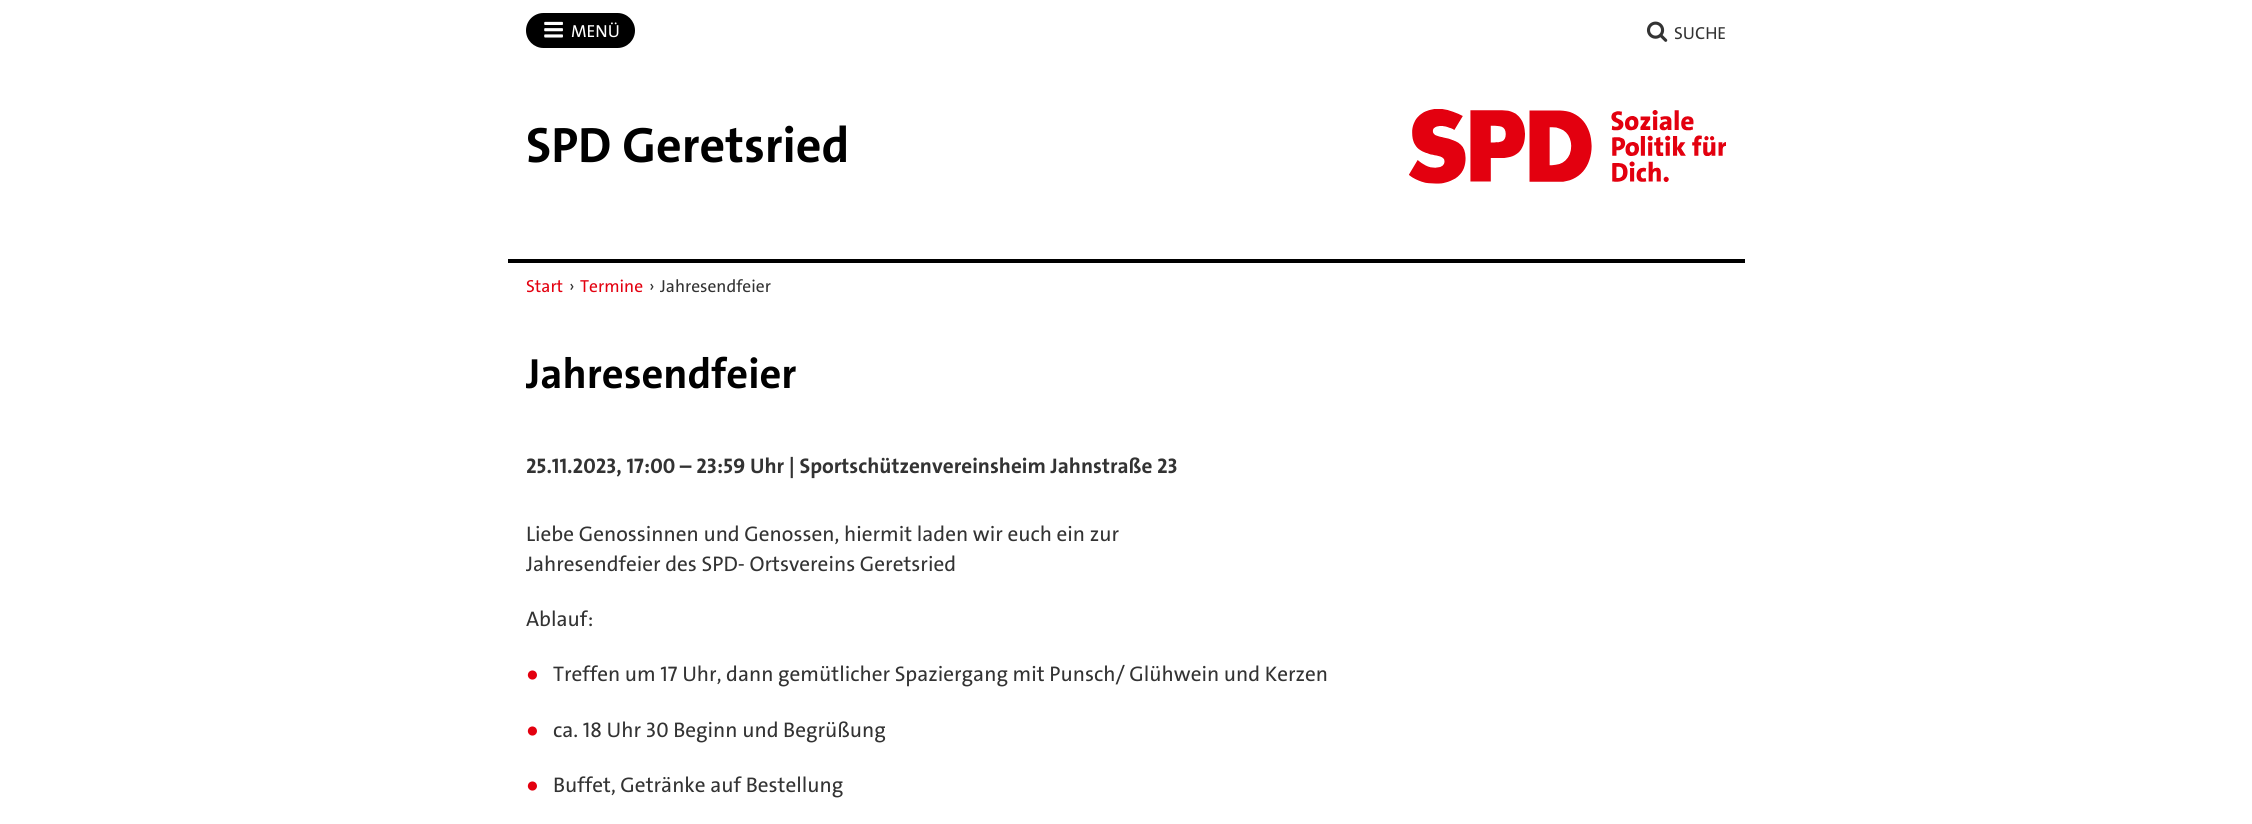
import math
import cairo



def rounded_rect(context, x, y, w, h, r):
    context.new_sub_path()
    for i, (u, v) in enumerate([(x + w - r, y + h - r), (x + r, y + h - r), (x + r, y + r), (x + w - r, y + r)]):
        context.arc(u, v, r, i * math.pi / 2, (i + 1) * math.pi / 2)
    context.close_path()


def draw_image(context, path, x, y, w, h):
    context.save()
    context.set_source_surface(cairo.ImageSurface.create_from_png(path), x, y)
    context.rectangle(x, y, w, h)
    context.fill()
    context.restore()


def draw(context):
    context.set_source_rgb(1, 1, 1)
    context.paint()
    context.set_source_rgb(0, 0, 0)
    rounded_rect(context, 527.5, 14.5, 106, 32, 16)
    context.fill_preserve()
    context.set_line_width(3)
    context.stroke()
    draw_image(context, "images/1.png", 544, 21, 19, 17)
    draw_image(context, "images/2.png", 1646, 21, 22, 21)
    draw_image(context, "images/3.png", 1409, 109, 317, 75)
    context.rectangle(508, 259, 1237, 4)
    context.fill()
    context.select_font_face("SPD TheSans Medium")
    context.set_font_size(17.5)
    context.set_source_rgb(1, 1, 1)
    context.move_to(571, 37)
    context.show_text("MENÜ")
    context.set_source_rgb(51 / 255, 51 / 255, 51 / 255)
    context.move_to(1674, 39)
    context.show_text("SUCHE")
    context.select_font_face("SPD TheSans", cairo.FontSlant.NORMAL, cairo.FontWeight.BOLD)
    context.set_font_size(50)
    context.set_source_rgb(0, 0, 0)
    context.move_to(526, 162)
    context.show_text("SPD Geretsried")
    context.select_font_face("SPD TheSans Medium")
    context.set_font_size(17.5)
    context.set_source_rgb(227 / 255, 0, 15 / 255)
    context.move_to(526, 292)
    context.show_text("Start")
    context.set_source_rgb(51 / 255, 51 / 255, 51 / 255)
    context.move_to(569, 292)
    context.show_text("›")
    context.set_source_rgb(227 / 255, 0, 15 / 255)
    context.move_to(580, 292)
    context.show_text("Termine")
    context.set_source_rgb(51 / 255, 51 / 255, 51 / 255)
    context.move_to(649, 292)
    context.show_text("›")
    context.move_to(660, 292)
    context.show_text("Jahresendfeier")
    context.select_font_face("SPD TheSans", cairo.FontSlant.NORMAL, cairo.FontWeight.BOLD)
    context.set_font_size(42.5)
    context.set_source_rgb(0, 0, 0)
    context.move_to(526, 388)
    context.show_text("Jahresendfeier")
    context.set_font_size(21.25)
    context.set_source_rgb(51 / 255, 51 / 255, 51 / 255)
    context.move_to(526, 473)
    context.show_text("25.11.2023, 17:00 – 23:59 Uhr | Sportschützenvereinsheim Jahnstraße 23")
    context.select_font_face("SPD TheSans Medium")
    context.move_to(526, 541)
    context.show_text("Liebe Genossinnen und Genossen, hiermit laden wir euch ein zur")
    context.move_to(526, 571)
    context.show_text("Jahresendfeier des SPD- Ortsvereins Geretsried")
    context.move_to(526, 626)
    context.show_text("Ablauf:")
    context.select_font_face("Liberation Sans")
    context.set_source_rgb(227 / 255, 0, 15 / 255)
    context.move_to(526, 681)
    context.show_text("●")
    context.select_font_face("SPD TheSans Medium")
    context.set_source_rgb(51 / 255, 51 / 255, 51 / 255)
    context.move_to(553, 681)
    context.show_text("Treffen um 17 Uhr, dann gemütlicher Spaziergang mit Punsch/ Glühwein und Kerzen")
    context.select_font_face("Liberation Sans")
    context.set_source_rgb(227 / 255, 0, 15 / 255)
    context.move_to(526, 737)
    context.show_text("●")
    context.select_font_face("SPD TheSans Medium")
    context.set_source_rgb(51 / 255, 51 / 255, 51 / 255)
    context.move_to(553, 737)
    context.show_text("ca. 18 Uhr 30 Beginn und Begrüßung")
    context.select_font_face("Liberation Sans")
    context.set_source_rgb(227 / 255, 0, 15 / 255)
    context.move_to(526, 792)
    context.show_text("●")
    context.select_font_face("SPD TheSans Medium")
    context.set_source_rgb(51 / 255, 51 / 255, 51 / 255)
    context.move_to(553, 792)
    context.show_text("Buffet, Getränke auf Bestellung")


surface = cairo.ImageSurface(cairo.Format.RGB24, 2252, 824)
context = cairo.Context(surface)
options = cairo.FontOptions()
options.set_hint_metrics(cairo.HintMetrics.OFF)
options.set_hint_style(cairo.HintStyle.NONE)
context.set_font_options(options)
context.set_miter_limit(4)
draw(context)
surface.write_to_png("out.png")
